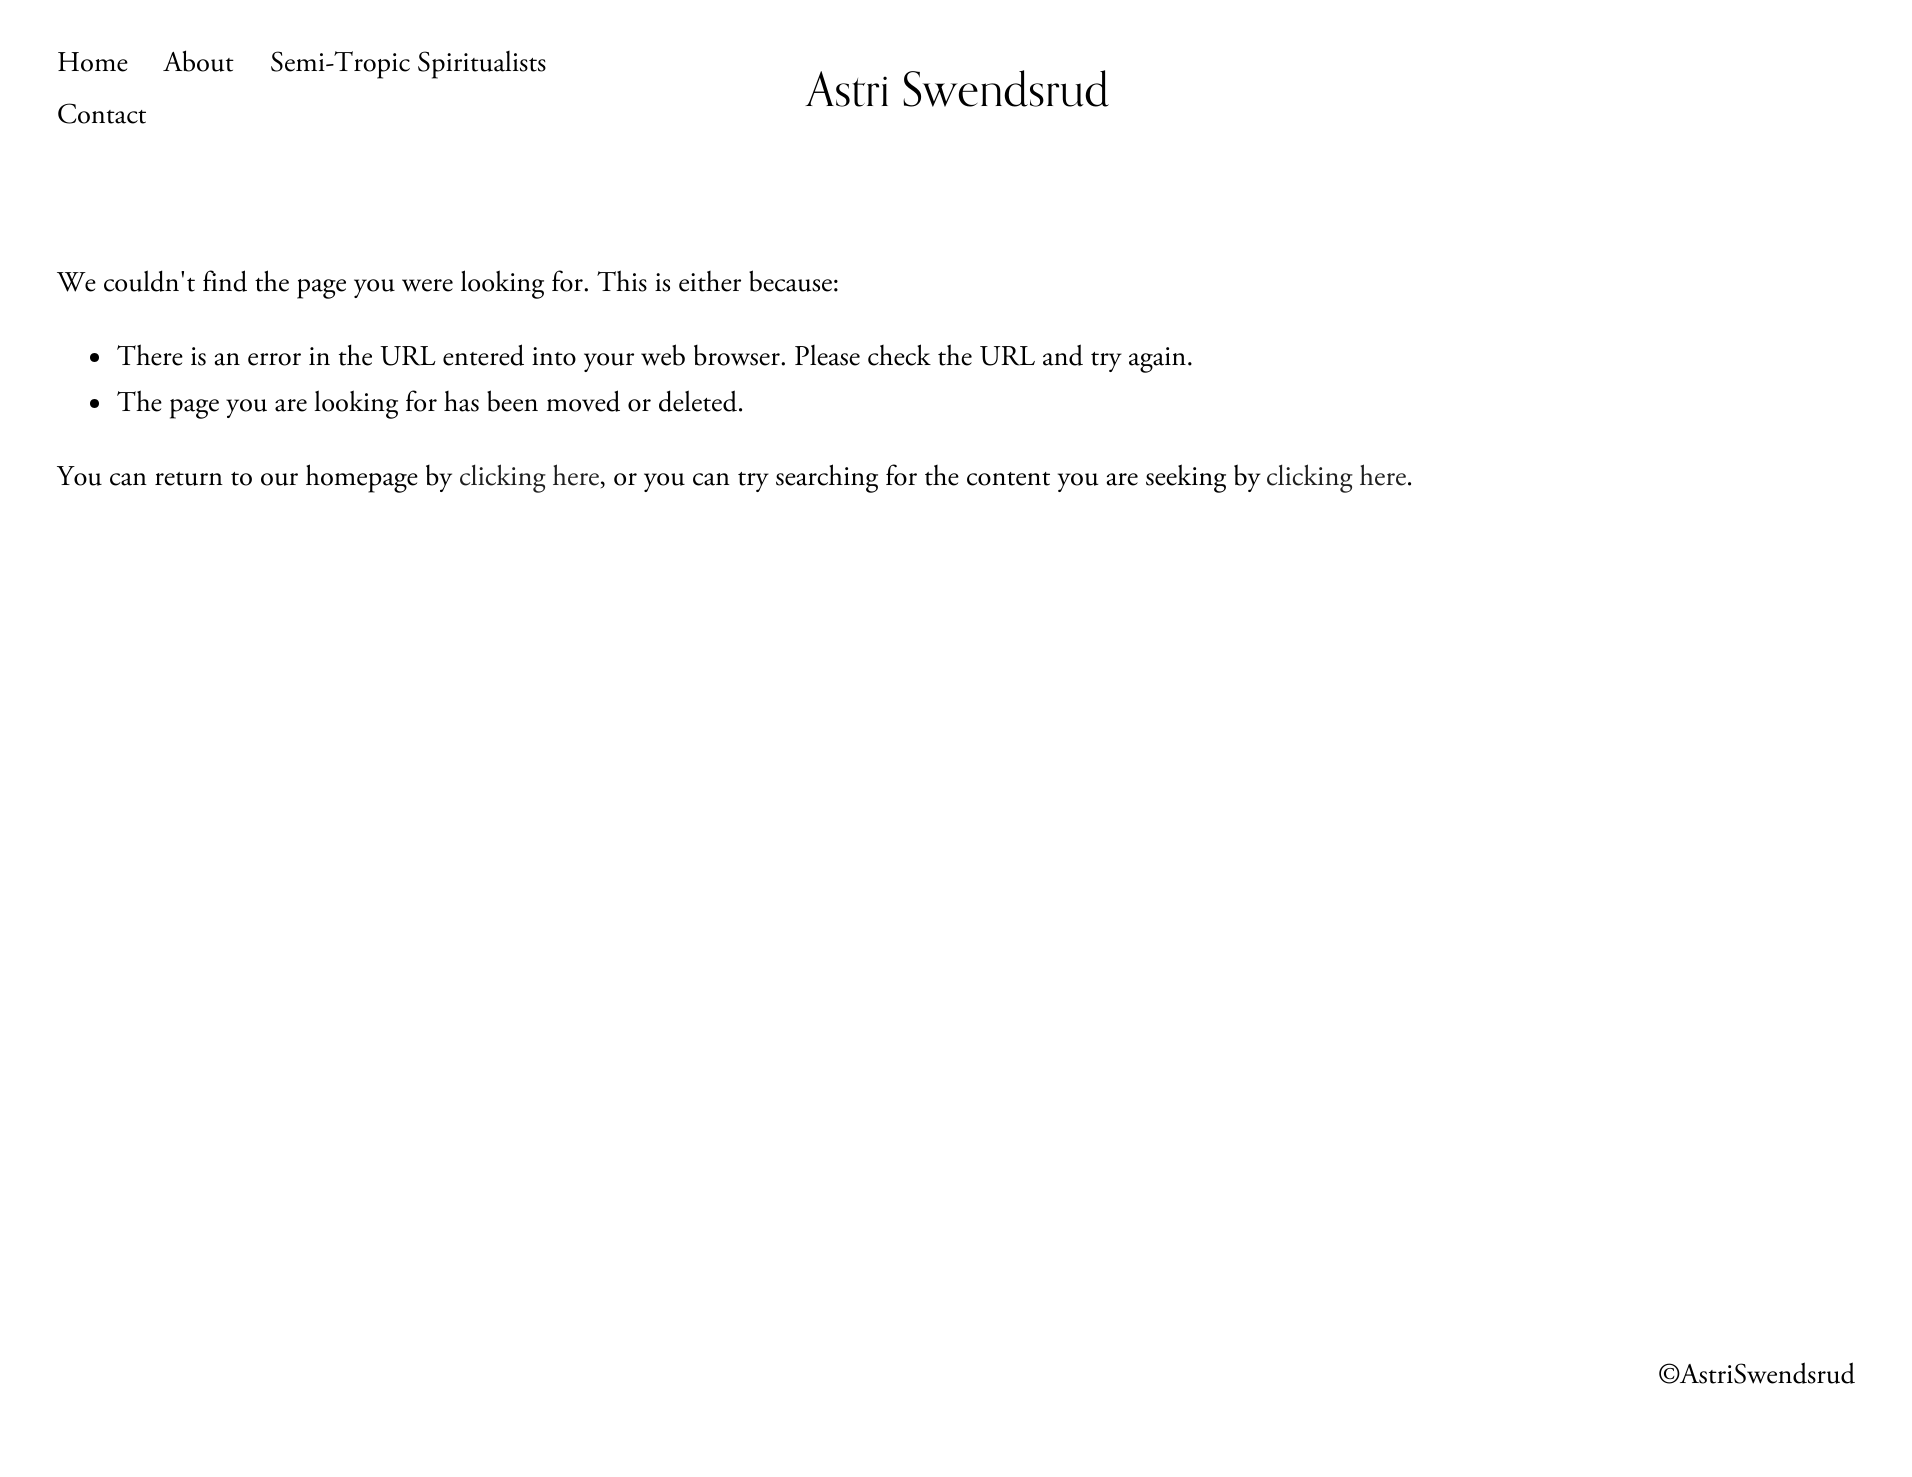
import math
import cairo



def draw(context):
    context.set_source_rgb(1, 1, 1)
    context.paint()
    context.set_source_rgb(0, 0, 0)
    context.arc(94.5, 357.5, 4.5, 0, 2 * math.pi)
    context.fill()
    context.arc(94.5, 403.5, 4.5, 0, 2 * math.pi)
    context.fill()
    context.select_font_face("Adobe Garamond")
    context.set_font_size(28.6)
    context.move_to(57, 71)
    context.show_text("Home")
    context.move_to(164, 71)
    context.show_text("About")
    context.move_to(270, 71)
    context.show_text("Semi-Tropic Spiritualists")
    context.move_to(57, 123)
    context.show_text("Contact")
    context.select_font_face("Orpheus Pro")
    context.set_font_size(47)
    context.move_to(807, 106)
    context.show_text("Astri Swendsrud")
    context.select_font_face("Adobe Garamond")
    context.set_font_size(28.6)
    context.move_to(57, 291)
    context.show_text("We couldn't find the page you were looking for. This is either because:")
    context.move_to(117, 365)
    context.show_text("There is an error in the URL entered into your web browser. Please check the URL and try again.")
    context.move_to(117, 411)
    context.show_text("The page you are looking for has been moved or deleted.")
    context.move_to(57, 485)
    context.show_text("You can return to our homepage by")
    context.set_source_rgb(31 / 255, 31 / 255, 31 / 255)
    context.move_to(459, 485)
    context.show_text("clicking here")
    context.set_source_rgb(0, 0, 0)
    context.move_to(599, 485)
    context.show_text(", or you can try searching for the content you are seeking by")
    context.set_source_rgb(31 / 255, 31 / 255, 31 / 255)
    context.move_to(1266, 485)
    context.show_text("clicking here")
    context.set_source_rgb(0, 0, 0)
    context.move_to(1406, 485)
    context.show_text(".")
    context.move_to(1658, 1383)
    context.show_text("©AstriSwendsrud")


surface = cairo.ImageSurface(cairo.Format.RGB24, 1912, 1477)
context = cairo.Context(surface)
options = cairo.FontOptions()
options.set_hint_metrics(cairo.HintMetrics.OFF)
options.set_hint_style(cairo.HintStyle.NONE)
context.set_font_options(options)
context.set_miter_limit(4)
draw(context)
surface.write_to_png("out.png")
